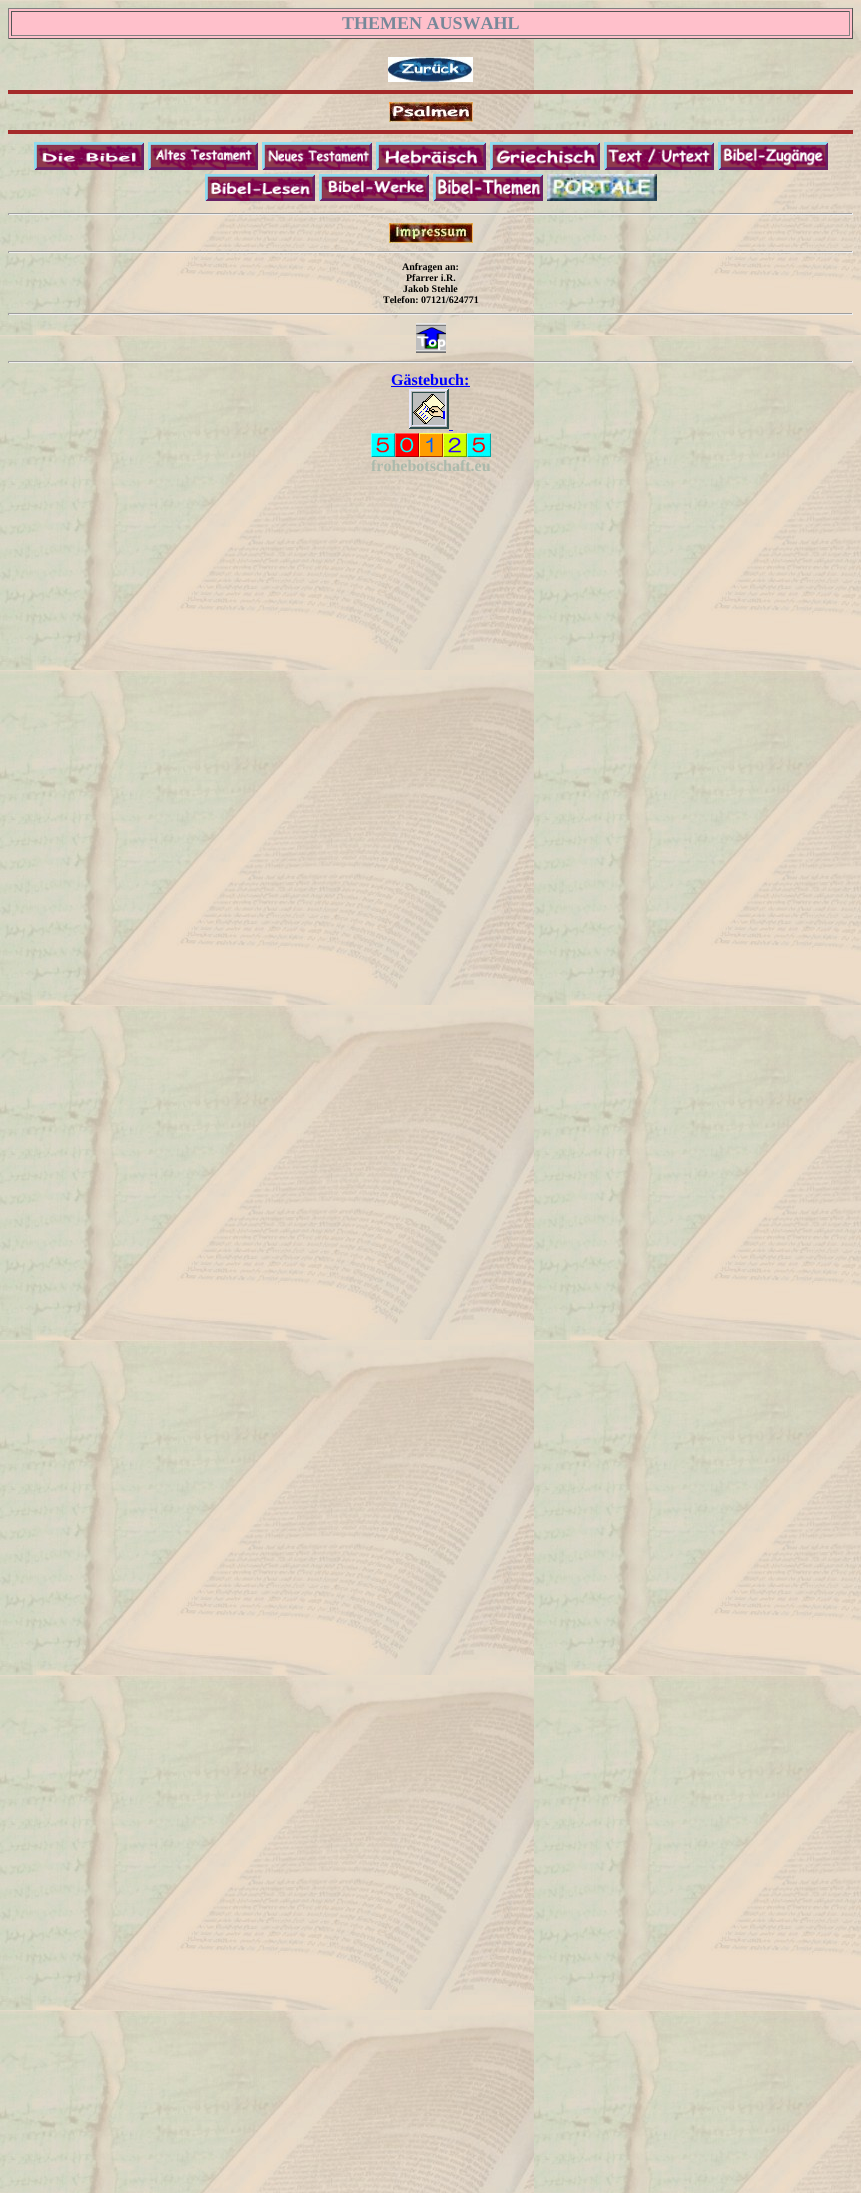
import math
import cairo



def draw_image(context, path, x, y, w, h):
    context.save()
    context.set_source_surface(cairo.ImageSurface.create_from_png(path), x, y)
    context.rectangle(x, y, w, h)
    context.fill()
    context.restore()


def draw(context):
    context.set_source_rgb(1, 1, 1)
    context.paint()
    draw_image(context, "images/1.png", 0, 0, 861, 2193)
    context.set_source_rgb(1, 192 / 255, 203 / 255)
    context.rectangle(9, 9, 843, 29)
    context.fill()
    context.set_source_rgb(128 / 255, 128 / 255, 128 / 255)
    context.rectangle(8, 8, 845, 1)
    context.fill()
    context.set_source_rgb(85 / 255, 85 / 255, 85 / 255)
    context.rectangle(852, 8, 1, 31)
    context.fill()
    context.rectangle(8, 38, 845, 1)
    context.fill()
    context.set_source_rgb(128 / 255, 128 / 255, 128 / 255)
    context.rectangle(8, 8, 1, 31)
    context.fill()
    context.set_source_rgb(85 / 255, 85 / 255, 85 / 255)
    context.rectangle(11, 11, 839, 1)
    context.fill()
    context.set_source_rgb(128 / 255, 128 / 255, 128 / 255)
    context.rectangle(849, 11, 1, 25)
    context.fill()
    context.rectangle(11, 35, 839, 1)
    context.fill()
    context.set_source_rgb(85 / 255, 85 / 255, 85 / 255)
    context.rectangle(11, 11, 1, 25)
    context.fill()
    draw_image(context, "images/2.png", 388, 57, 85, 25)
    context.set_source_rgb(165 / 255, 42 / 255, 42 / 255)
    context.rectangle(8, 90, 845, 4)
    context.fill()
    draw_image(context, "images/3.png", 389, 102, 84, 20)
    context.rectangle(8, 130, 845, 4)
    context.fill()
    draw_image(context, "images/4.png", 34, 142, 110, 28)
    draw_image(context, "images/5.png", 148, 142, 110, 28)
    draw_image(context, "images/6.png", 262, 142, 110, 28)
    draw_image(context, "images/7.png", 376, 142, 110, 28)
    draw_image(context, "images/8.png", 490, 142, 110, 28)
    draw_image(context, "images/9.png", 604, 142, 110, 28)
    draw_image(context, "images/10.png", 718, 142, 110, 28)
    draw_image(context, "images/11.png", 205, 174, 110, 27)
    draw_image(context, "images/12.png", 319, 174, 110, 27)
    draw_image(context, "images/13.png", 433, 174, 110, 27)
    draw_image(context, "images/14.png", 547, 174, 110, 27)
    context.set_source_rgb(159 / 255, 159 / 255, 159 / 255)
    context.rectangle(8, 213, 845, 1)
    context.fill()
    context.set_source_rgb(238 / 255, 238 / 255, 238 / 255)
    context.rectangle(852, 213, 1, 2)
    context.fill()
    context.rectangle(8, 214, 845, 1)
    context.fill()
    context.set_source_rgb(159 / 255, 159 / 255, 159 / 255)
    context.rectangle(8, 213, 1, 2)
    context.fill()
    draw_image(context, "images/15.png", 389, 223, 84, 20)
    context.rectangle(8, 251, 845, 1)
    context.fill()
    context.set_source_rgb(238 / 255, 238 / 255, 238 / 255)
    context.rectangle(852, 251, 1, 2)
    context.fill()
    context.rectangle(8, 252, 845, 1)
    context.fill()
    context.set_source_rgb(159 / 255, 159 / 255, 159 / 255)
    context.rectangle(8, 251, 1, 2)
    context.fill()
    context.rectangle(8, 313, 845, 1)
    context.fill()
    context.set_source_rgb(238 / 255, 238 / 255, 238 / 255)
    context.rectangle(852, 313, 1, 2)
    context.fill()
    context.rectangle(8, 314, 845, 1)
    context.fill()
    context.set_source_rgb(159 / 255, 159 / 255, 159 / 255)
    context.rectangle(8, 313, 1, 2)
    context.fill()
    draw_image(context, "images/16.png", 416, 323, 30, 30)
    context.rectangle(8, 361, 845, 1)
    context.fill()
    context.set_source_rgb(238 / 255, 238 / 255, 238 / 255)
    context.rectangle(852, 361, 1, 2)
    context.fill()
    context.rectangle(8, 362, 845, 1)
    context.fill()
    context.set_source_rgb(159 / 255, 159 / 255, 159 / 255)
    context.rectangle(8, 361, 1, 2)
    context.fill()
    context.set_source_rgb(0, 0, 1)
    context.rectangle(391, 386, 79, 1)
    context.fill()
    context.rectangle(449, 430, 4, 1)
    context.fill()
    draw_image(context, "images/17.png", 409, 389, 40, 40)
    draw_image(context, "images/18.png", 371, 433, 120, 24)
    context.select_font_face("Liberation Serif", cairo.FontSlant.NORMAL, cairo.FontWeight.BOLD)
    context.set_font_size(18)
    context.set_source_rgb(119 / 255, 136 / 255, 153 / 255)
    context.move_to(342, 29)
    context.show_text("THEMEN AUSWAHL")
    context.set_font_size(10)
    context.set_source_rgb(0, 0, 0)
    context.move_to(402, 270)
    context.show_text("Anfragen an:")
    context.move_to(406, 281)
    context.show_text("Pfarrer i.R.")
    context.move_to(403, 292)
    context.show_text("Jakob Stehle")
    context.move_to(383, 303)
    context.show_text("Telefon: 07121/624771")
    context.set_font_size(16)
    context.set_source_rgb(0, 0, 1)
    context.move_to(391, 385)
    context.show_text("Gästebuch:")
    context.set_source_rgb(171 / 255, 186 / 255, 172 / 255)
    context.move_to(371, 471)
    context.show_text("frohebotschaft.eu")


surface = cairo.ImageSurface(cairo.Format.RGB24, 861, 2193)
context = cairo.Context(surface)
options = cairo.FontOptions()
options.set_hint_metrics(cairo.HintMetrics.OFF)
options.set_hint_style(cairo.HintStyle.NONE)
context.set_font_options(options)
context.set_miter_limit(4)
draw(context)
surface.write_to_png("out.png")
